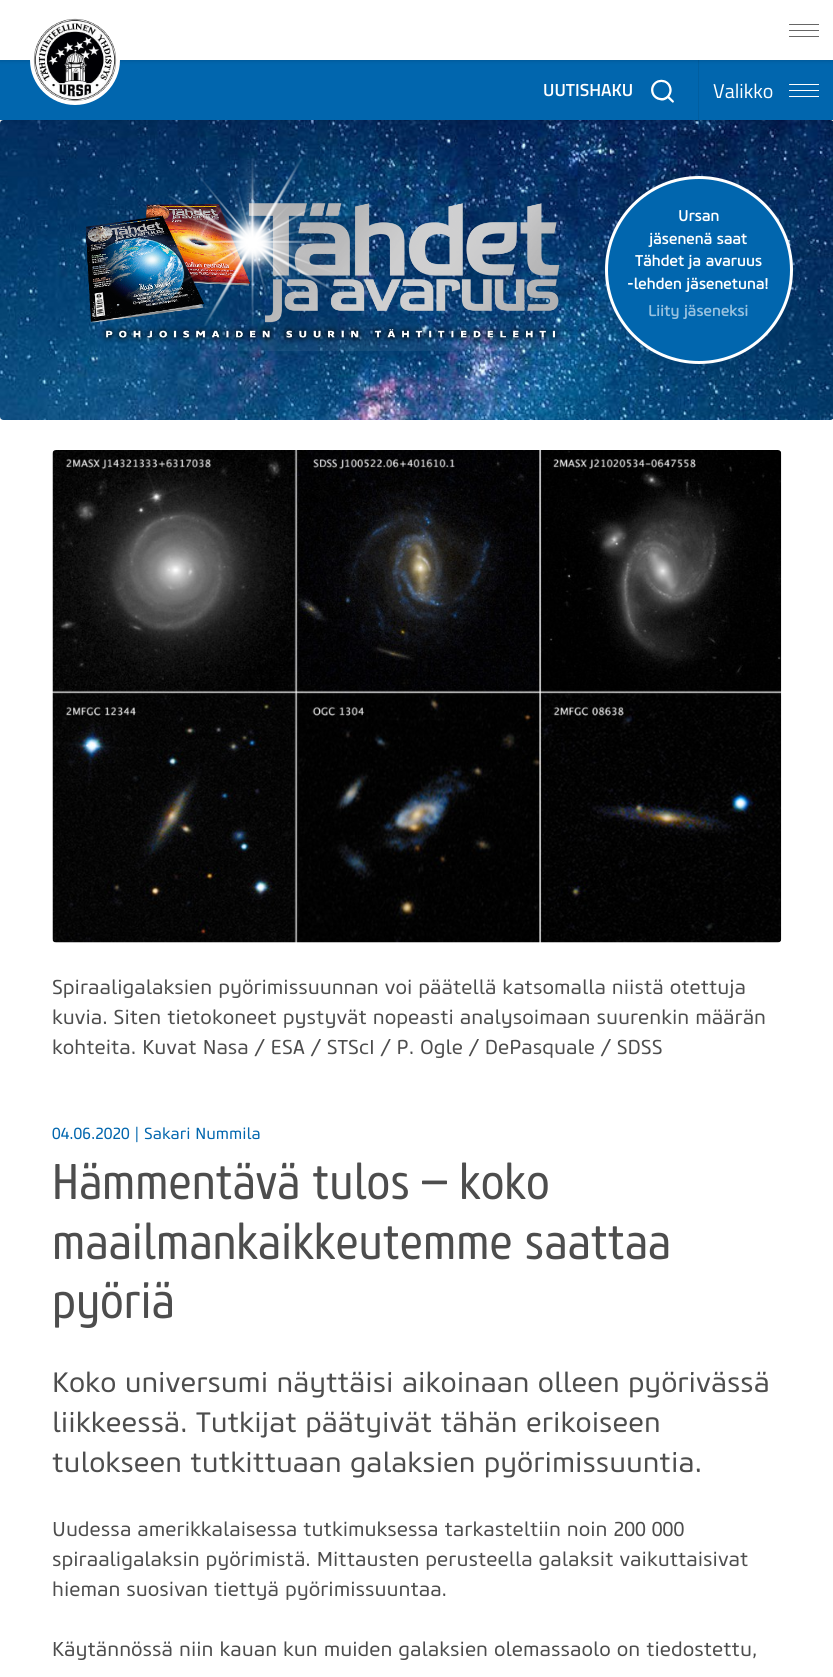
import math
import cairo



def rounded_rect(context, x, y, w, h, r):
    context.new_sub_path()
    for i, (u, v) in enumerate([(x + w - r, y + h - r), (x + r, y + h - r), (x + r, y + r), (x + w - r, y + r)]):
        context.arc(u, v, r, i * math.pi / 2, (i + 1) * math.pi / 2)
    context.close_path()


def draw_shadow(context, x, y, w, h, r, blur, alpha):
    context.push_group_with_content(cairo.Content.ALPHA)
    context.set_operator(cairo.Operator.SOURCE)
    for i in range(15, -16, -2):
        e = blur * i / 6
        if min(w, h) + 2 * e > 0:
            context.set_source_rgba(0, 0, 0, alpha * math.erfc((i - 1) / 8.5) / 2)
            rounded_rect(context, x - e, y - e, w + 2 * e, h + 2 * e, max(0, min(r + e + blur * .6, min(w, h) / 2 + e)))
            context.fill()
    context.mask(context.pop_group())


def draw_image(context, path, x, y, w, h):
    context.save()
    context.set_source_surface(cairo.ImageSurface.create_from_png(path), x, y)
    context.rectangle(x, y, w, h)
    context.fill()
    context.restore()


def draw(context):
    context.set_source_rgb(1, 1, 1)
    context.paint()
    draw_image(context, "images/3.png", 0, 120, 833, 300)
    context.set_source_rgb(0, 0, 0)
    draw_shadow(context, 0, 61, 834, 60, 0, 2, 0.08)
    context.set_source_rgb(1 / 255, 102 / 255, 174 / 255)
    context.rectangle(0, 60, 833, 60)
    context.fill()
    context.set_source_rgb(1 / 255, 94 / 255, 160 / 255)
    context.rectangle(698, 60, 1, 60)
    context.fill()
    context.set_source_rgb(0, 0, 0)
    draw_shadow(context, 0, 1, 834, 60, 0, 2, 0.15)
    context.set_source_rgb(1, 1, 1)
    context.rectangle(0, 0, 833, 60)
    context.fill()
    context.arc(75, 60, 45, 0, 2 * math.pi)
    context.fill()
    draw_image(context, "images/1.png", 33, 18, 84, 84)
    context.set_source_rgb(102 / 255, 102 / 255, 102 / 255)
    context.rectangle(789, 30, 30, 1)
    context.fill()
    context.rectangle(789, 24, 30, 1)
    context.fill()
    context.rectangle(789, 36, 30, 1)
    context.fill()
    draw_image(context, "images/2.png", 651, 79, 23, 24)
    context.set_source_rgb(1, 1, 1)
    context.rectangle(789, 90, 30, 1)
    context.fill()
    context.rectangle(789, 84, 30, 1)
    context.fill()
    context.rectangle(789, 96, 30, 1)
    context.fill()
    draw_image(context, "images/4.png", 86, 158, 479, 193)
    context.set_source_rgb(1 / 255, 102 / 255, 174 / 255)
    context.arc(699, 270, 92.5, 0, 2 * math.pi)
    context.fill_preserve()
    context.set_source_rgb(1, 1, 1)
    context.set_line_width(3)
    context.stroke()
    draw_image(context, "images/5.png", 52, 450, 730, 493)
    context.select_font_face("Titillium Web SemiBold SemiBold")
    context.set_font_size(17.5)
    context.move_to(543, 96)
    context.show_text("UUTISHAKU")
    context.select_font_face("Titillium Web")
    context.set_font_size(20)
    context.move_to(713, 98)
    context.show_text("Valikko")
    context.select_font_face("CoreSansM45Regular", cairo.FontSlant.NORMAL, cairo.FontWeight.BOLD)
    context.set_font_size(15)
    context.move_to(678, 221)
    context.show_text("Ursan")
    context.move_to(649, 244)
    context.show_text("jäsenenä saat")
    context.move_to(635, 266)
    context.show_text("Tähdet ja avaruus")
    context.move_to(627, 289)
    context.show_text("-lehden jäsenetuna!")
    context.set_source_rgb(153 / 255, 194 / 255, 223 / 255)
    context.move_to(648, 316)
    context.show_text("Liity jäseneksi")
    context.select_font_face("CoreSansM45Regular")
    context.set_font_size(20)
    context.set_source_rgb(77 / 255, 77 / 255, 77 / 255)
    context.move_to(52, 994)
    context.show_text("Spiraaligalaksien pyörimissuunnan voi päätellä katsomalla niistä otettuja")
    context.move_to(52, 1024)
    context.show_text("kuvia. Siten tietokoneet pystyvät nopeasti analysoimaan suurenkin määrän")
    context.move_to(52, 1054)
    context.show_text("kohteita. Kuvat Nasa / ESA / STScI / P. Ogle / DePasquale / SDSS")
    context.set_font_size(16)
    context.set_source_rgb(1 / 255, 102 / 255, 174 / 255)
    context.move_to(52, 1139)
    context.show_text("04.06.2020 | Sakari Nummila")
    context.select_font_face("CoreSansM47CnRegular")
    context.set_font_size(50)
    context.set_source_rgb(77 / 255, 77 / 255, 77 / 255)
    context.move_to(52, 1199)
    context.show_text("Hämmentävä tulos – koko")
    context.move_to(52, 1259)
    context.show_text("maailmankaikkeutemme saattaa")
    context.move_to(52, 1318)
    context.show_text("pyöriä")
    context.select_font_face("CoreSansM45Regular")
    context.set_font_size(28)
    context.move_to(52, 1392)
    context.show_text("Koko universumi näyttäisi aikoinaan olleen pyörivässä")
    context.move_to(52, 1432)
    context.show_text("liikkeessä. Tutkijat päätyivät tähän erikoiseen")
    context.move_to(52, 1472)
    context.show_text("tulokseen tutkittuaan galaksien pyörimissuuntia.")
    context.set_font_size(20)
    context.move_to(52, 1536)
    context.show_text("Uudessa amerikkalaisessa tutkimuksessa tarkasteltiin noin 200 000")
    context.move_to(52, 1566)
    context.show_text("spiraaligalaksin pyörimistä. Mittausten perusteella galaksit vaikuttaisivat")
    context.move_to(52, 1596)
    context.show_text("hieman suosivan tiettyä pyörimissuuntaa.")
    context.move_to(52, 1656)
    context.show_text("Käytännössä niin kauan kun muiden galaksien olemassaolo on tiedostettu,")


surface = cairo.ImageSurface(cairo.Format.RGB24, 833, 1677)
context = cairo.Context(surface)
options = cairo.FontOptions()
options.set_hint_metrics(cairo.HintMetrics.OFF)
options.set_hint_style(cairo.HintStyle.NONE)
context.set_font_options(options)
context.set_miter_limit(4)
draw(context)
surface.write_to_png("out.png")
